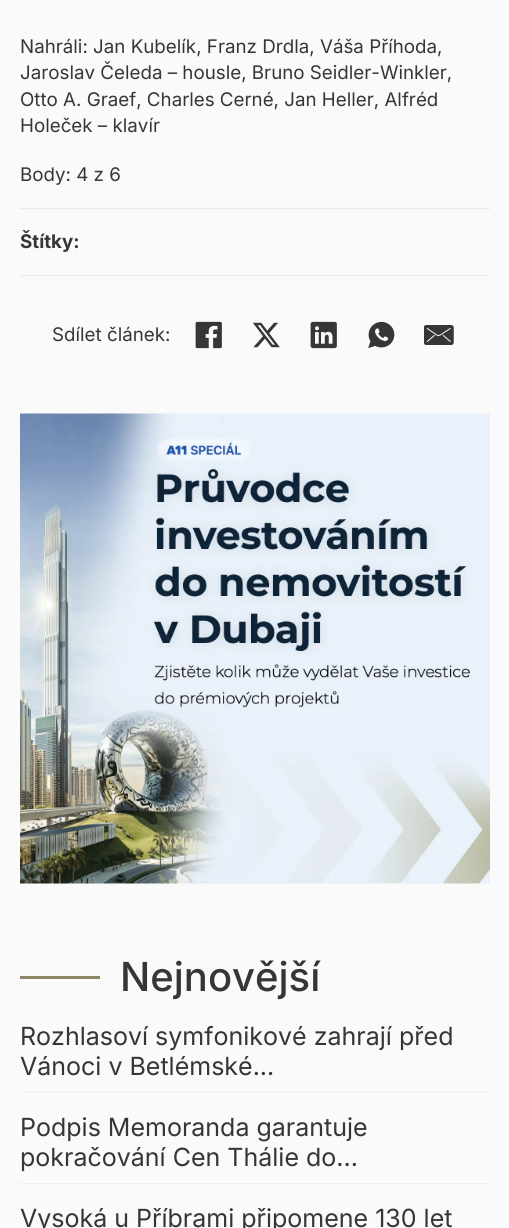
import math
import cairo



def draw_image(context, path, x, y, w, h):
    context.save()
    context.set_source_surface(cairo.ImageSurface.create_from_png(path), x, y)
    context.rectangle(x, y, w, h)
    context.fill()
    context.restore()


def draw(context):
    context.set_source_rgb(250 / 255, 250 / 255, 250 / 255)
    context.paint()
    context.set_source_rgb(235 / 255, 235 / 255, 235 / 255)
    context.rectangle(20, 208, 470, 1)
    context.fill()
    context.rectangle(20, 275, 470, 1)
    context.fill()
    draw_image(context, "images/1.png", 195, 321, 27, 28)
    draw_image(context, "images/2.png", 252, 322, 28, 26)
    draw_image(context, "images/3.png", 310, 321, 27, 28)
    draw_image(context, "images/4.png", 368, 321, 27, 28)
    draw_image(context, "images/5.png", 424, 325, 30, 20)
    draw_image(context, "images/6.png", 20, 413, 470, 471)
    context.set_source_rgb(143 / 255, 132 / 255, 104 / 255)
    context.rectangle(20, 976, 80, 3)
    context.fill()
    context.set_source_rgb(240 / 255, 240 / 255, 240 / 255)
    context.rectangle(20, 1091, 470, 1)
    context.fill()
    context.rectangle(20, 1183, 470, 1)
    context.fill()
    context.select_font_face("Inter")
    context.set_font_size(18.75)
    context.set_source_rgb(54 / 255, 54 / 255, 54 / 255)
    context.move_to(20, 53)
    context.show_text("Nahráli: Jan Kubelík, Franz Drdla, Váša Příhoda,")
    context.move_to(20, 79)
    context.show_text("Jaroslav Čeleda – housle, Bruno Seidler-Winkler,")
    context.move_to(20, 106)
    context.show_text("Otto A. Graef, Charles Cerné, Jan Heller, Alfréd")
    context.move_to(20, 132)
    context.show_text("Holeček – klavír")
    context.move_to(20, 181)
    context.show_text("Body: 4 z 6")
    context.select_font_face("Inter", cairo.FontSlant.NORMAL, cairo.FontWeight.BOLD)
    context.move_to(20, 248)
    context.show_text("Štítky:")
    context.select_font_face("Inter")
    context.move_to(52, 341)
    context.show_text("Sdílet článek:")
    context.select_font_face("Inter Medium")
    context.set_font_size(40)
    context.move_to(120, 991)
    context.show_text("Nejnovější")
    context.select_font_face("Inter")
    context.set_font_size(25)
    context.move_to(20, 1045)
    context.show_text("Rozhlasoví symfonikové zahrají před")
    context.move_to(20, 1075)
    context.show_text("Vánoci v Betlémské...")
    context.move_to(20, 1136)
    context.show_text("Podpis Memoranda garantuje")
    context.move_to(20, 1166)
    context.show_text("pokračování Cen Thálie do...")
    context.move_to(20, 1227)
    context.show_text("Vysoká u Příbrami připomene 130 let")


surface = cairo.ImageSurface(cairo.Format.RGB24, 509, 1228)
context = cairo.Context(surface)
options = cairo.FontOptions()
options.set_hint_metrics(cairo.HintMetrics.OFF)
options.set_hint_style(cairo.HintStyle.NONE)
context.set_font_options(options)
context.set_miter_limit(4)
draw(context)
surface.write_to_png("out.png")
